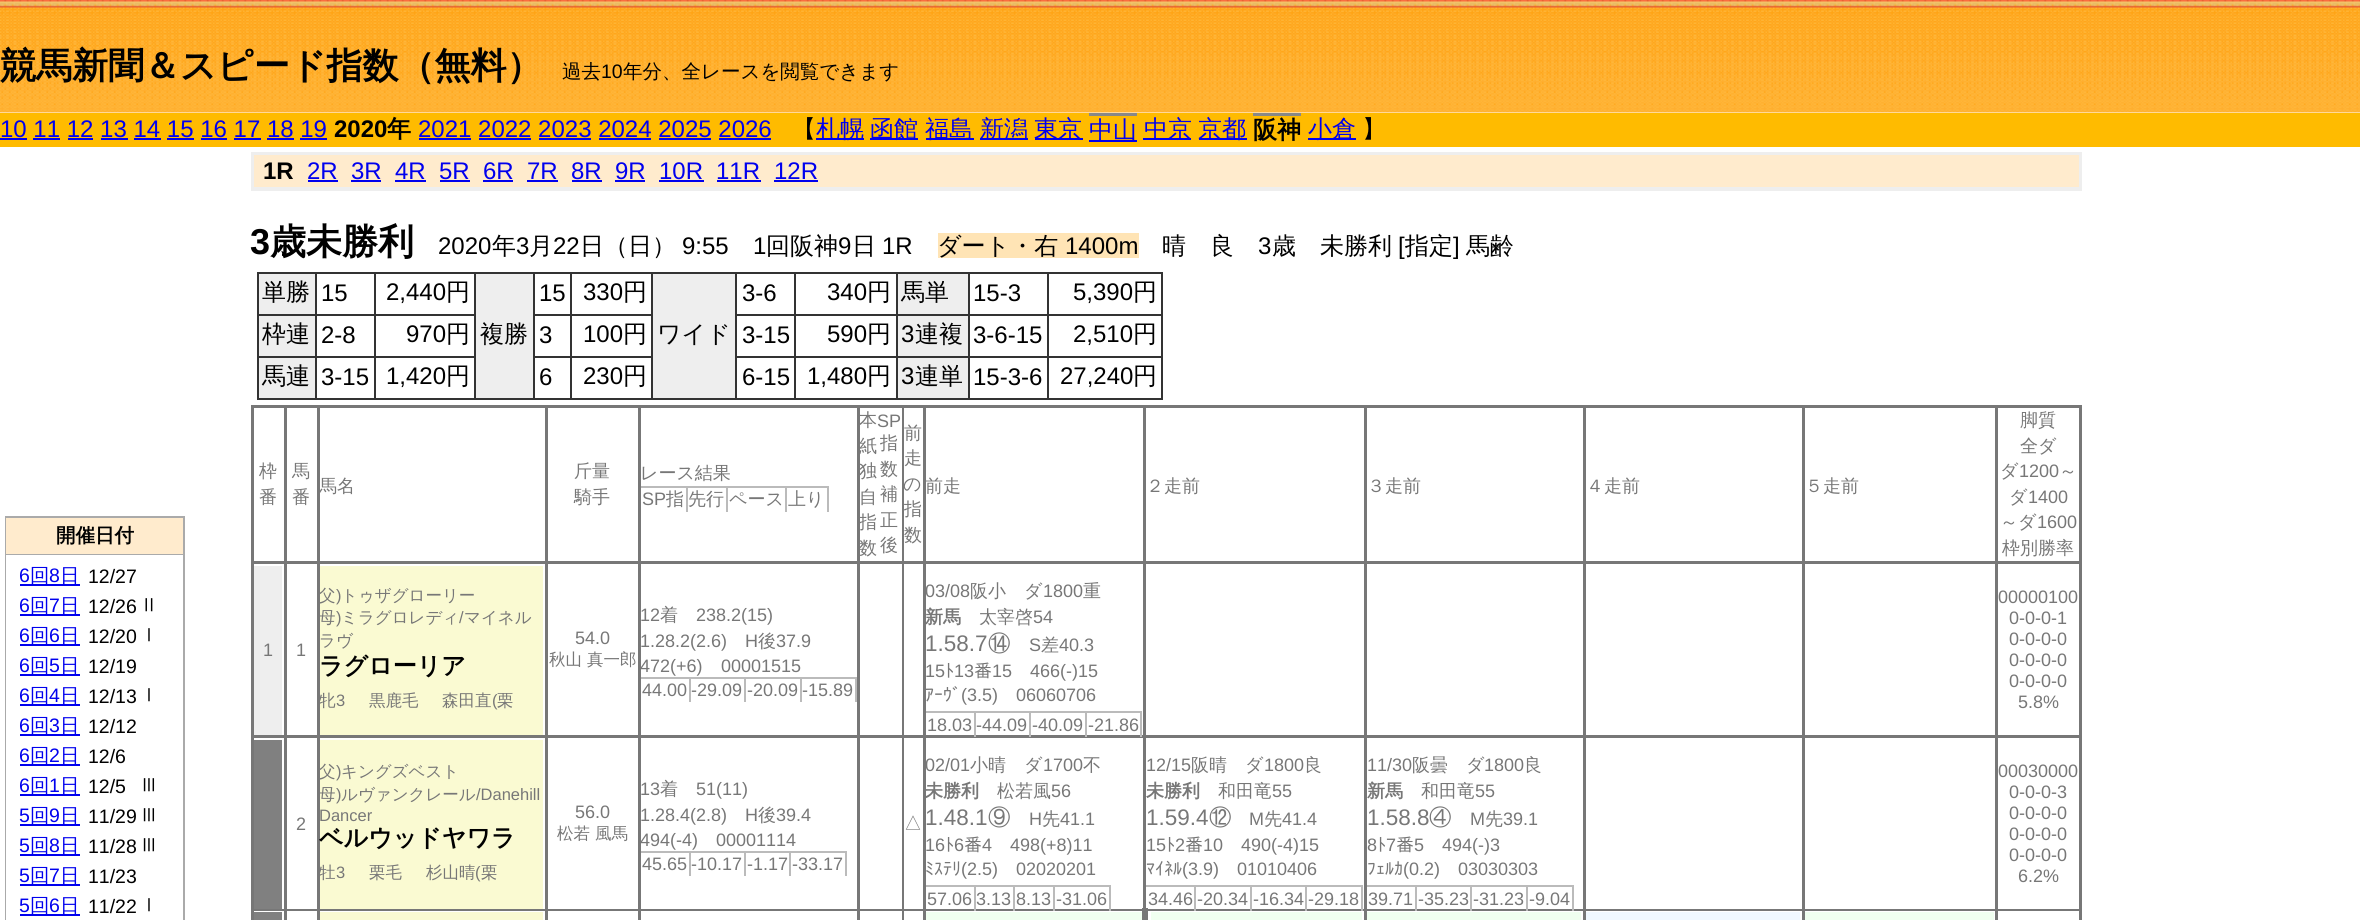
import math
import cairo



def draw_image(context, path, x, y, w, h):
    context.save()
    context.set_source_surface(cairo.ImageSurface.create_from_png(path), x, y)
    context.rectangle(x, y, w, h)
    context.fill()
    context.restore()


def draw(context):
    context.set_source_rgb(1, 1, 1)
    context.paint()
    draw_image(context, "images/1.png", 0, 0, 2360, 113)
    context.set_source_rgb(1, 187 / 255, 0)
    context.rectangle(0, 113, 2360, 34)
    context.fill()
    context.set_source_rgb(0, 0, 238 / 255)
    context.rectangle(0, 138, 27, 2)
    context.fill()
    context.rectangle(419, 138, 52, 2)
    context.fill()
    context.rectangle(33, 138, 27, 2)
    context.fill()
    context.rectangle(68, 138, 25, 2)
    context.fill()
    context.rectangle(101, 138, 27, 2)
    context.fill()
    context.rectangle(134, 138, 27, 2)
    context.fill()
    context.rectangle(167, 138, 27, 2)
    context.fill()
    context.rectangle(201, 138, 26, 2)
    context.fill()
    context.rectangle(234, 138, 27, 2)
    context.fill()
    context.rectangle(267, 138, 27, 2)
    context.fill()
    context.rectangle(300, 138, 27, 2)
    context.fill()
    context.rectangle(479, 138, 52, 2)
    context.fill()
    context.rectangle(539, 138, 52, 2)
    context.fill()
    context.rectangle(599, 138, 52, 2)
    context.fill()
    context.rectangle(659, 138, 52, 2)
    context.fill()
    context.rectangle(719, 138, 52, 2)
    context.fill()
    context.rectangle(816, 138, 48, 2)
    context.fill()
    context.rectangle(870, 138, 48, 2)
    context.fill()
    context.rectangle(926, 138, 48, 2)
    context.fill()
    context.rectangle(980, 138, 48, 2)
    context.fill()
    context.rectangle(1035, 138, 48, 2)
    context.fill()
    context.set_source_rgb(136 / 255, 136 / 255, 136 / 255)
    context.rectangle(1089, 113, 48, 3)
    context.fill()
    context.set_source_rgb(0, 0, 238 / 255)
    context.rectangle(1089, 140, 48, 2)
    context.fill()
    context.rectangle(1143, 138, 48, 2)
    context.fill()
    context.rectangle(1199, 138, 48, 2)
    context.fill()
    context.set_source_rgb(136 / 255, 136 / 255, 136 / 255)
    context.rectangle(1253, 113, 48, 3)
    context.fill()
    context.set_source_rgb(0, 0, 238 / 255)
    context.rectangle(1308, 138, 48, 2)
    context.fill()
    context.set_source_rgb(170 / 255, 170 / 255, 170 / 255)
    context.rectangle(5, 516, 180, 404)
    context.fill()
    context.set_source_rgb(1, 235 / 255, 205 / 255)
    context.rectangle(6, 518, 177, 36)
    context.fill()
    context.set_source_rgb(1, 1, 1)
    context.rectangle(6, 555, 177, 365)
    context.fill()
    context.set_source_rgb(0, 0, 238 / 255)
    context.rectangle(20, 584, 60, 2)
    context.fill()
    context.rectangle(20, 614, 60, 2)
    context.fill()
    context.rectangle(20, 644, 60, 2)
    context.fill()
    context.rectangle(20, 674, 60, 2)
    context.fill()
    context.rectangle(20, 704, 60, 2)
    context.fill()
    context.rectangle(20, 734, 60, 2)
    context.fill()
    context.rectangle(20, 764, 60, 2)
    context.fill()
    context.rectangle(20, 794, 60, 2)
    context.fill()
    context.rectangle(20, 824, 60, 2)
    context.fill()
    context.rectangle(20, 854, 60, 2)
    context.fill()
    context.rectangle(20, 884, 60, 2)
    context.fill()
    context.rectangle(20, 914, 60, 2)
    context.fill()
    context.rectangle(252, 153, 1829, 37)
    context.set_source_rgb(238 / 255, 238 / 255, 238 / 255)
    context.stroke()
    context.set_source_rgb(1, 235 / 255, 205 / 255)
    context.rectangle(253, 154, 1827, 34)
    context.fill_preserve()
    context.set_source_rgb(238 / 255, 238 / 255, 238 / 255)
    context.stroke()
    context.set_source_rgb(0, 0, 238 / 255)
    context.rectangle(308, 180, 30, 2)
    context.fill()
    context.rectangle(351, 180, 30, 2)
    context.fill()
    context.rectangle(395, 180, 31, 2)
    context.fill()
    context.rectangle(440, 180, 30, 2)
    context.fill()
    context.rectangle(483, 180, 30, 2)
    context.fill()
    context.rectangle(527, 180, 31, 2)
    context.fill()
    context.rectangle(572, 180, 30, 2)
    context.fill()
    context.rectangle(615, 180, 30, 2)
    context.fill()
    context.rectangle(659, 180, 45, 2)
    context.fill()
    context.rectangle(717, 180, 44, 2)
    context.fill()
    context.rectangle(774, 180, 44, 2)
    context.fill()
    context.set_source_rgb(1, 228 / 255, 181 / 255)
    context.rectangle(938, 233, 201, 25)
    context.fill()
    context.set_source_rgb(238 / 255, 238 / 255, 238 / 255)
    context.rectangle(259, 274, 56, 40)
    context.fill()
    context.set_source_rgb(51 / 255, 51 / 255, 51 / 255)
    context.rectangle(1047, 272, 116, 2)
    context.fill()
    context.rectangle(1047, 314, 116, 2)
    context.fill()
    context.rectangle(1047, 356, 116, 2)
    context.fill()
    context.rectangle(1161, 356, 2, 43)
    context.fill()
    context.rectangle(1047, 398, 116, 2)
    context.fill()
    context.rectangle(1047, 356, 2, 43)
    context.fill()
    context.rectangle(968, 356, 81, 2)
    context.fill()
    context.rectangle(1047, 314, 2, 43)
    context.fill()
    context.rectangle(968, 314, 81, 2)
    context.fill()
    context.rectangle(1047, 272, 2, 43)
    context.fill()
    context.rectangle(968, 272, 81, 2)
    context.fill()
    context.rectangle(968, 398, 81, 2)
    context.fill()
    context.rectangle(968, 356, 2, 43)
    context.fill()
    context.rectangle(896, 356, 73, 2)
    context.fill()
    context.rectangle(968, 314, 2, 43)
    context.fill()
    context.rectangle(896, 314, 73, 2)
    context.fill()
    context.rectangle(968, 272, 2, 43)
    context.fill()
    context.rectangle(896, 272, 73, 2)
    context.fill()
    context.rectangle(896, 398, 73, 2)
    context.fill()
    context.rectangle(896, 356, 2, 43)
    context.fill()
    context.rectangle(794, 356, 103, 2)
    context.fill()
    context.rectangle(896, 314, 2, 43)
    context.fill()
    context.rectangle(794, 314, 103, 2)
    context.fill()
    context.rectangle(896, 272, 2, 43)
    context.fill()
    context.rectangle(794, 272, 103, 2)
    context.fill()
    context.rectangle(794, 398, 103, 2)
    context.fill()
    context.rectangle(794, 356, 2, 43)
    context.fill()
    context.rectangle(735, 356, 60, 2)
    context.fill()
    context.rectangle(794, 314, 2, 43)
    context.fill()
    context.rectangle(735, 314, 60, 2)
    context.fill()
    context.rectangle(794, 272, 2, 43)
    context.fill()
    context.rectangle(735, 272, 60, 2)
    context.fill()
    context.rectangle(735, 398, 60, 2)
    context.fill()
    context.rectangle(735, 356, 2, 43)
    context.fill()
    context.rectangle(735, 314, 2, 43)
    context.fill()
    context.rectangle(735, 272, 2, 43)
    context.fill()
    context.rectangle(651, 272, 86, 2)
    context.fill()
    context.rectangle(570, 314, 83, 2)
    context.fill()
    context.rectangle(570, 356, 83, 2)
    context.fill()
    context.rectangle(570, 398, 167, 2)
    context.fill()
    context.rectangle(651, 272, 2, 127)
    context.fill()
    context.rectangle(570, 272, 83, 2)
    context.fill()
    context.rectangle(570, 356, 2, 43)
    context.fill()
    context.rectangle(533, 356, 39, 2)
    context.fill()
    context.rectangle(570, 314, 2, 43)
    context.fill()
    context.rectangle(533, 314, 39, 2)
    context.fill()
    context.rectangle(570, 272, 2, 43)
    context.fill()
    context.rectangle(533, 272, 39, 2)
    context.fill()
    context.rectangle(533, 398, 39, 2)
    context.fill()
    context.rectangle(533, 356, 2, 43)
    context.fill()
    context.rectangle(533, 314, 2, 43)
    context.fill()
    context.rectangle(533, 272, 2, 43)
    context.fill()
    context.rectangle(474, 272, 60, 2)
    context.fill()
    context.rectangle(374, 314, 102, 2)
    context.fill()
    context.rectangle(374, 356, 102, 2)
    context.fill()
    context.rectangle(374, 398, 160, 2)
    context.fill()
    context.rectangle(474, 272, 2, 127)
    context.fill()
    context.rectangle(374, 272, 102, 2)
    context.fill()
    context.rectangle(374, 356, 2, 43)
    context.fill()
    context.rectangle(315, 356, 60, 2)
    context.fill()
    context.rectangle(374, 314, 2, 43)
    context.fill()
    context.rectangle(315, 314, 60, 2)
    context.fill()
    context.rectangle(374, 272, 2, 43)
    context.fill()
    context.rectangle(315, 272, 60, 2)
    context.fill()
    context.rectangle(315, 398, 60, 2)
    context.fill()
    context.rectangle(315, 356, 2, 43)
    context.fill()
    context.rectangle(257, 356, 60, 2)
    context.fill()
    context.rectangle(315, 314, 2, 43)
    context.fill()
    context.rectangle(257, 314, 60, 2)
    context.fill()
    context.rectangle(315, 272, 2, 43)
    context.fill()
    context.rectangle(257, 272, 60, 2)
    context.fill()
    context.rectangle(257, 398, 60, 2)
    context.fill()
    context.rectangle(257, 356, 2, 43)
    context.fill()
    context.rectangle(257, 314, 2, 43)
    context.fill()
    context.rectangle(257, 272, 2, 43)
    context.fill()
    context.set_source_rgb(238 / 255, 238 / 255, 238 / 255)
    context.rectangle(898, 274, 70, 40)
    context.fill()
    context.set_source_rgb(51 / 255, 51 / 255, 51 / 255)
    context.rectangle(1161, 314, 2, 43)
    context.fill()
    context.rectangle(1161, 272, 2, 43)
    context.fill()
    context.set_source_rgb(238 / 255, 238 / 255, 238 / 255)
    context.rectangle(476, 274, 57, 124)
    context.fill()
    context.rectangle(653, 274, 82, 124)
    context.fill()
    context.rectangle(259, 316, 56, 40)
    context.fill()
    context.rectangle(898, 316, 70, 40)
    context.fill()
    context.rectangle(259, 358, 56, 40)
    context.fill()
    context.rectangle(898, 358, 70, 40)
    context.fill()
    context.set_source_rgb(119 / 255, 119 / 255, 119 / 255)
    context.rectangle(251, 909, 1830, 2)
    context.fill()
    context.rectangle(902, 407, 2, 513)
    context.fill()
    context.rectangle(251, 405, 1831, 3)
    context.fill()
    context.rectangle(2079, 405, 3, 515)
    context.fill()
    context.set_source_rgb(128 / 255, 128 / 255, 128 / 255)
    context.rectangle(252, 912, 30, 8)
    context.fill()
    context.set_source_rgb(119 / 255, 119 / 255, 119 / 255)
    context.rectangle(251, 405, 3, 515)
    context.fill()
    context.set_source_rgb(240 / 255, 1, 240 / 255)
    context.rectangle(1151, 912, 211, 8)
    context.fill()
    context.rectangle(1365, 912, 216, 8)
    context.fill()
    context.set_source_rgb(119 / 255, 119 / 255, 119 / 255)
    context.rectangle(1364, 909, 3, 11)
    context.fill()
    context.rectangle(251, 735, 1831, 3)
    context.fill()
    context.rectangle(1143, 735, 3, 177)
    context.fill()
    context.rectangle(1142, 908, 6, 12)
    context.fill()
    context.rectangle(284, 909, 3, 11)
    context.fill()
    context.set_source_rgb(250 / 255, 250 / 255, 210 / 255)
    context.rectangle(318, 912, 225, 8)
    context.fill()
    context.set_source_rgb(119 / 255, 119 / 255, 119 / 255)
    context.rectangle(317, 909, 3, 11)
    context.fill()
    context.rectangle(545, 909, 3, 11)
    context.fill()
    context.rectangle(638, 909, 3, 11)
    context.fill()
    context.rectangle(857, 909, 3, 11)
    context.fill()
    context.set_source_rgb(240 / 255, 1, 240 / 255)
    context.rectangle(924, 912, 218, 8)
    context.fill()
    context.set_source_rgb(119 / 255, 119 / 255, 119 / 255)
    context.rectangle(923, 909, 3, 11)
    context.fill()
    context.set_source_rgb(240 / 255, 248 / 255, 1)
    context.rectangle(1584, 912, 216, 8)
    context.fill()
    context.set_source_rgb(119 / 255, 119 / 255, 119 / 255)
    context.rectangle(1583, 909, 3, 11)
    context.fill()
    context.set_source_rgb(240 / 255, 1, 240 / 255)
    context.rectangle(1803, 912, 191, 8)
    context.fill()
    context.set_source_rgb(119 / 255, 119 / 255, 119 / 255)
    context.rectangle(1802, 909, 3, 11)
    context.fill()
    context.rectangle(1995, 909, 3, 11)
    context.fill()
    context.set_source_rgb(187 / 255, 187 / 255, 187 / 255)
    context.rectangle(641, 486, 46, 2)
    context.fill()
    context.rectangle(686, 486, 2, 26)
    context.fill()
    context.rectangle(687, 486, 99, 2)
    context.fill()
    context.rectangle(726, 486, 2, 26)
    context.fill()
    context.rectangle(785, 486, 2, 26)
    context.fill()
    context.rectangle(786, 486, 42, 2)
    context.fill()
    context.rectangle(827, 486, 2, 26)
    context.fill()
    context.set_source_rgb(238 / 255, 238 / 255, 238 / 255)
    context.rectangle(254, 566, 28, 169)
    context.fill()
    context.set_source_rgb(119 / 255, 119 / 255, 119 / 255)
    context.rectangle(251, 561, 1831, 3)
    context.fill()
    context.rectangle(284, 735, 3, 177)
    context.fill()
    context.rectangle(284, 405, 3, 333)
    context.fill()
    context.rectangle(317, 735, 3, 177)
    context.fill()
    context.rectangle(317, 405, 3, 333)
    context.fill()
    context.set_source_rgb(250 / 255, 250 / 255, 210 / 255)
    context.rectangle(320, 566, 223, 169)
    context.fill()
    context.set_source_rgb(119 / 255, 119 / 255, 119 / 255)
    context.rectangle(545, 735, 3, 177)
    context.fill()
    context.rectangle(545, 405, 3, 333)
    context.fill()
    context.rectangle(638, 735, 3, 177)
    context.fill()
    context.rectangle(638, 405, 3, 333)
    context.fill()
    context.rectangle(857, 735, 3, 177)
    context.fill()
    context.rectangle(857, 405, 3, 333)
    context.fill()
    context.set_source_rgb(187 / 255, 187 / 255, 187 / 255)
    context.rectangle(641, 677, 49, 2)
    context.fill()
    context.rectangle(689, 677, 2, 25)
    context.fill()
    context.rectangle(690, 677, 111, 2)
    context.fill()
    context.rectangle(744, 677, 2, 25)
    context.fill()
    context.rectangle(800, 677, 2, 25)
    context.fill()
    context.rectangle(801, 677, 56, 2)
    context.fill()
    context.rectangle(855, 677, 2, 25)
    context.fill()
    context.set_source_rgb(119 / 255, 119 / 255, 119 / 255)
    context.rectangle(923, 735, 3, 177)
    context.fill()
    context.rectangle(923, 405, 3, 333)
    context.fill()
    context.rectangle(1143, 405, 3, 333)
    context.fill()
    context.set_source_rgb(187 / 255, 187 / 255, 187 / 255)
    context.rectangle(926, 711, 49, 2)
    context.fill()
    context.rectangle(974, 711, 2, 26)
    context.fill()
    context.rectangle(975, 711, 111, 2)
    context.fill()
    context.rectangle(1029, 711, 2, 26)
    context.fill()
    context.rectangle(1085, 711, 2, 26)
    context.fill()
    context.rectangle(1086, 711, 56, 2)
    context.fill()
    context.rectangle(1140, 711, 2, 26)
    context.fill()
    context.set_source_rgb(119 / 255, 119 / 255, 119 / 255)
    context.rectangle(1364, 735, 3, 177)
    context.fill()
    context.rectangle(1364, 405, 3, 333)
    context.fill()
    context.rectangle(1583, 735, 3, 177)
    context.fill()
    context.rectangle(1583, 405, 3, 333)
    context.fill()
    context.rectangle(1802, 735, 3, 177)
    context.fill()
    context.rectangle(1802, 405, 3, 333)
    context.fill()
    context.rectangle(1995, 735, 3, 177)
    context.fill()
    context.rectangle(1995, 405, 3, 333)
    context.fill()
    context.set_source_rgb(128 / 255, 128 / 255, 128 / 255)
    context.rectangle(254, 740, 28, 169)
    context.fill()
    context.set_source_rgb(250 / 255, 250 / 255, 210 / 255)
    context.rectangle(320, 740, 223, 169)
    context.fill()
    context.set_source_rgb(187 / 255, 187 / 255, 187 / 255)
    context.rectangle(641, 851, 49, 2)
    context.fill()
    context.rectangle(689, 851, 2, 25)
    context.fill()
    context.rectangle(690, 851, 156, 2)
    context.fill()
    context.rectangle(744, 851, 2, 25)
    context.fill()
    context.rectangle(789, 851, 2, 25)
    context.fill()
    context.rectangle(845, 851, 2, 25)
    context.fill()
    context.rectangle(926, 885, 49, 2)
    context.fill()
    context.rectangle(974, 885, 2, 26)
    context.fill()
    context.rectangle(975, 885, 39, 2)
    context.fill()
    context.rectangle(1013, 885, 2, 26)
    context.fill()
    context.rectangle(1014, 885, 96, 2)
    context.fill()
    context.rectangle(1053, 885, 2, 26)
    context.fill()
    context.rectangle(1109, 885, 2, 26)
    context.fill()
    context.rectangle(1146, 885, 105, 2)
    context.fill()
    context.rectangle(1194, 885, 2, 26)
    context.fill()
    context.rectangle(1250, 885, 2, 26)
    context.fill()
    context.rectangle(1251, 885, 111, 2)
    context.fill()
    context.rectangle(1305, 885, 2, 26)
    context.fill()
    context.rectangle(1361, 885, 2, 26)
    context.fill()
    context.rectangle(1367, 885, 49, 2)
    context.fill()
    context.rectangle(1415, 885, 2, 26)
    context.fill()
    context.rectangle(1416, 885, 111, 2)
    context.fill()
    context.rectangle(1470, 885, 2, 26)
    context.fill()
    context.rectangle(1526, 885, 2, 26)
    context.fill()
    context.rectangle(1527, 885, 47, 2)
    context.fill()
    context.rectangle(1572, 885, 2, 26)
    context.fill()
    context.select_font_face("WenQuanYi Zen Hei", cairo.FontSlant.NORMAL, cairo.FontWeight.BOLD)
    context.set_font_size(36)
    context.set_source_rgb(0, 0, 0)
    context.move_to(0, 78)
    context.show_text("競馬新聞＆スピード指数（無料）")
    context.select_font_face("WenQuanYi Zen Hei Medium")
    context.set_font_size(19.5)
    context.move_to(562, 78)
    context.show_text("過去")
    context.select_font_face("Liberation Sans")
    context.move_to(601, 78)
    context.show_text("10")
    context.select_font_face("WenQuanYi Zen Hei Medium")
    context.move_to(623, 78)
    context.show_text("年分、全レースを閲覧できます")
    context.select_font_face("Liberation Sans")
    context.set_font_size(24)
    context.set_source_rgb(0, 0, 238 / 255)
    context.move_to(0, 137)
    context.show_text("10 11 12 13 14 15 16 17 18 19")
    context.select_font_face("Liberation Sans", cairo.FontSlant.NORMAL, cairo.FontWeight.BOLD)
    context.set_source_rgb(0, 0, 0)
    context.move_to(334, 137)
    context.show_text("2020")
    context.select_font_face("WenQuanYi Zen Hei", cairo.FontSlant.NORMAL, cairo.FontWeight.BOLD)
    context.move_to(387, 137)
    context.show_text("年")
    context.select_font_face("Liberation Sans")
    context.set_source_rgb(0, 0, 238 / 255)
    context.move_to(418, 137)
    context.show_text("2021 2022 2023 2024 2025 2026")
    context.select_font_face("WenQuanYi Zen Hei Medium")
    context.set_source_rgb(0, 0, 0)
    context.move_to(792, 137)
    context.show_text("【")
    context.set_source_rgb(0, 0, 238 / 255)
    context.move_to(816, 137)
    context.show_text("札幌")
    context.move_to(870, 137)
    context.show_text("函館")
    context.move_to(925, 137)
    context.show_text("福島")
    context.move_to(980, 137)
    context.show_text("新潟")
    context.move_to(1034, 137)
    context.show_text("東京")
    context.move_to(1089, 138)
    context.show_text("中山")
    context.move_to(1144, 137)
    context.show_text("中京")
    context.move_to(1198, 137)
    context.show_text("京都")
    context.select_font_face("WenQuanYi Zen Hei", cairo.FontSlant.NORMAL, cairo.FontWeight.BOLD)
    context.set_source_rgb(0, 0, 0)
    context.move_to(1253, 138)
    context.show_text("阪神")
    context.select_font_face("WenQuanYi Zen Hei Medium")
    context.set_source_rgb(0, 0, 238 / 255)
    context.move_to(1308, 137)
    context.show_text("小倉")
    context.set_source_rgb(0, 0, 0)
    context.move_to(1362, 137)
    context.show_text("】")
    context.select_font_face("WenQuanYi Zen Hei", cairo.FontSlant.NORMAL, cairo.FontWeight.BOLD)
    context.set_font_size(19.5)
    context.move_to(56, 542)
    context.show_text("開催日付")
    context.select_font_face("Liberation Sans")
    context.set_source_rgb(0, 0, 238 / 255)
    context.move_to(19, 582)
    context.show_text("6")
    context.select_font_face("WenQuanYi Zen Hei Medium")
    context.move_to(30, 582)
    context.show_text("回")
    context.select_font_face("Liberation Sans")
    context.move_to(49, 582)
    context.show_text("8")
    context.select_font_face("WenQuanYi Zen Hei Medium")
    context.move_to(60, 582)
    context.show_text("日")
    context.select_font_face("Liberation Sans")
    context.set_source_rgb(0, 0, 0)
    context.move_to(88, 583)
    context.show_text("12/27")
    context.set_source_rgb(0, 0, 238 / 255)
    context.move_to(19, 612)
    context.show_text("6")
    context.select_font_face("WenQuanYi Zen Hei Medium")
    context.move_to(30, 612)
    context.show_text("回")
    context.select_font_face("Liberation Sans")
    context.move_to(49, 612)
    context.show_text("7")
    context.select_font_face("WenQuanYi Zen Hei Medium")
    context.move_to(60, 612)
    context.show_text("日")
    context.select_font_face("Liberation Sans")
    context.set_source_rgb(0, 0, 0)
    context.move_to(88, 613)
    context.show_text("12/26")
    context.select_font_face("WenQuanYi Zen Hei Medium")
    context.set_font_size(18)
    context.move_to(140, 611)
    context.show_text("Ⅱ")
    context.select_font_face("Liberation Sans")
    context.set_font_size(19.5)
    context.set_source_rgb(0, 0, 238 / 255)
    context.move_to(19, 642)
    context.show_text("6")
    context.select_font_face("WenQuanYi Zen Hei Medium")
    context.move_to(30, 642)
    context.show_text("回")
    context.select_font_face("Liberation Sans")
    context.move_to(49, 642)
    context.show_text("6")
    context.select_font_face("WenQuanYi Zen Hei Medium")
    context.move_to(60, 642)
    context.show_text("日")
    context.select_font_face("Liberation Sans")
    context.set_source_rgb(0, 0, 0)
    context.move_to(88, 643)
    context.show_text("12/20")
    context.select_font_face("WenQuanYi Zen Hei Medium")
    context.set_font_size(18)
    context.move_to(140, 641)
    context.show_text("Ⅰ")
    context.select_font_face("Liberation Sans")
    context.set_font_size(19.5)
    context.set_source_rgb(0, 0, 238 / 255)
    context.move_to(19, 672)
    context.show_text("6")
    context.select_font_face("WenQuanYi Zen Hei Medium")
    context.move_to(30, 672)
    context.show_text("回")
    context.select_font_face("Liberation Sans")
    context.move_to(49, 672)
    context.show_text("5")
    context.select_font_face("WenQuanYi Zen Hei Medium")
    context.move_to(60, 672)
    context.show_text("日")
    context.select_font_face("Liberation Sans")
    context.set_source_rgb(0, 0, 0)
    context.move_to(88, 673)
    context.show_text("12/19")
    context.set_source_rgb(0, 0, 238 / 255)
    context.move_to(19, 702)
    context.show_text("6")
    context.select_font_face("WenQuanYi Zen Hei Medium")
    context.move_to(30, 702)
    context.show_text("回")
    context.select_font_face("Liberation Sans")
    context.move_to(49, 702)
    context.show_text("4")
    context.select_font_face("WenQuanYi Zen Hei Medium")
    context.move_to(60, 702)
    context.show_text("日")
    context.select_font_face("Liberation Sans")
    context.set_source_rgb(0, 0, 0)
    context.move_to(88, 703)
    context.show_text("12/13")
    context.select_font_face("WenQuanYi Zen Hei Medium")
    context.set_font_size(18)
    context.move_to(140, 701)
    context.show_text("Ⅰ")
    context.select_font_face("Liberation Sans")
    context.set_font_size(19.5)
    context.set_source_rgb(0, 0, 238 / 255)
    context.move_to(19, 732)
    context.show_text("6")
    context.select_font_face("WenQuanYi Zen Hei Medium")
    context.move_to(30, 732)
    context.show_text("回")
    context.select_font_face("Liberation Sans")
    context.move_to(49, 732)
    context.show_text("3")
    context.select_font_face("WenQuanYi Zen Hei Medium")
    context.move_to(60, 732)
    context.show_text("日")
    context.select_font_face("Liberation Sans")
    context.set_source_rgb(0, 0, 0)
    context.move_to(88, 733)
    context.show_text("12/12")
    context.set_source_rgb(0, 0, 238 / 255)
    context.move_to(19, 762)
    context.show_text("6")
    context.select_font_face("WenQuanYi Zen Hei Medium")
    context.move_to(30, 762)
    context.show_text("回")
    context.select_font_face("Liberation Sans")
    context.move_to(49, 762)
    context.show_text("2")
    context.select_font_face("WenQuanYi Zen Hei Medium")
    context.move_to(60, 762)
    context.show_text("日")
    context.select_font_face("Liberation Sans")
    context.set_source_rgb(0, 0, 0)
    context.move_to(88, 763)
    context.show_text("12/6")
    context.set_source_rgb(0, 0, 238 / 255)
    context.move_to(19, 792)
    context.show_text("6")
    context.select_font_face("WenQuanYi Zen Hei Medium")
    context.move_to(30, 792)
    context.show_text("回")
    context.select_font_face("Liberation Sans")
    context.move_to(49, 792)
    context.show_text("1")
    context.select_font_face("WenQuanYi Zen Hei Medium")
    context.move_to(60, 792)
    context.show_text("日")
    context.select_font_face("Liberation Sans")
    context.set_source_rgb(0, 0, 0)
    context.move_to(88, 793)
    context.show_text("12/5")
    context.select_font_face("WenQuanYi Zen Hei Medium")
    context.set_font_size(18)
    context.move_to(140, 791)
    context.show_text("Ⅲ")
    context.select_font_face("Liberation Sans")
    context.set_font_size(19.5)
    context.set_source_rgb(0, 0, 238 / 255)
    context.move_to(19, 822)
    context.show_text("5")
    context.select_font_face("WenQuanYi Zen Hei Medium")
    context.move_to(30, 822)
    context.show_text("回")
    context.select_font_face("Liberation Sans")
    context.move_to(49, 822)
    context.show_text("9")
    context.select_font_face("WenQuanYi Zen Hei Medium")
    context.move_to(60, 822)
    context.show_text("日")
    context.select_font_face("Liberation Sans")
    context.set_source_rgb(0, 0, 0)
    context.move_to(88, 823)
    context.show_text("11/29")
    context.select_font_face("WenQuanYi Zen Hei Medium")
    context.set_font_size(18)
    context.move_to(140, 821)
    context.show_text("Ⅲ")
    context.select_font_face("Liberation Sans")
    context.set_font_size(19.5)
    context.set_source_rgb(0, 0, 238 / 255)
    context.move_to(19, 852)
    context.show_text("5")
    context.select_font_face("WenQuanYi Zen Hei Medium")
    context.move_to(30, 852)
    context.show_text("回")
    context.select_font_face("Liberation Sans")
    context.move_to(49, 852)
    context.show_text("8")
    context.select_font_face("WenQuanYi Zen Hei Medium")
    context.move_to(60, 852)
    context.show_text("日")
    context.select_font_face("Liberation Sans")
    context.set_source_rgb(0, 0, 0)
    context.move_to(88, 853)
    context.show_text("11/28")
    context.select_font_face("WenQuanYi Zen Hei Medium")
    context.set_font_size(18)
    context.move_to(140, 851)
    context.show_text("Ⅲ")
    context.select_font_face("Liberation Sans")
    context.set_font_size(19.5)
    context.set_source_rgb(0, 0, 238 / 255)
    context.move_to(19, 882)
    context.show_text("5")
    context.select_font_face("WenQuanYi Zen Hei Medium")
    context.move_to(30, 882)
    context.show_text("回")
    context.select_font_face("Liberation Sans")
    context.move_to(49, 882)
    context.show_text("7")
    context.select_font_face("WenQuanYi Zen Hei Medium")
    context.move_to(60, 882)
    context.show_text("日")
    context.select_font_face("Liberation Sans")
    context.set_source_rgb(0, 0, 0)
    context.move_to(88, 883)
    context.show_text("11/23")
    context.set_source_rgb(0, 0, 238 / 255)
    context.move_to(19, 912)
    context.show_text("5")
    context.select_font_face("WenQuanYi Zen Hei Medium")
    context.move_to(30, 912)
    context.show_text("回")
    context.select_font_face("Liberation Sans")
    context.move_to(49, 912)
    context.show_text("6")
    context.select_font_face("WenQuanYi Zen Hei Medium")
    context.move_to(60, 912)
    context.show_text("日")
    context.select_font_face("Liberation Sans")
    context.set_source_rgb(0, 0, 0)
    context.move_to(88, 913)
    context.show_text("11/22")
    context.select_font_face("WenQuanYi Zen Hei Medium")
    context.set_font_size(18)
    context.move_to(140, 911)
    context.show_text("Ⅰ")
    context.select_font_face("Liberation Sans", cairo.FontSlant.NORMAL, cairo.FontWeight.BOLD)
    context.set_font_size(24)
    context.move_to(263, 179)
    context.show_text("1R")
    context.select_font_face("Liberation Sans")
    context.set_source_rgb(0, 0, 238 / 255)
    context.move_to(307, 179)
    context.show_text("2R")
    context.move_to(351, 179)
    context.show_text("3R")
    context.move_to(395, 179)
    context.show_text("4R")
    context.move_to(439, 179)
    context.show_text("5R")
    context.move_to(483, 179)
    context.show_text("6R")
    context.move_to(527, 179)
    context.show_text("7R")
    context.move_to(571, 179)
    context.show_text("8R")
    context.move_to(615, 179)
    context.show_text("9R")
    context.move_to(659, 179)
    context.show_text("10R")
    context.move_to(716, 179)
    context.show_text("11R")
    context.move_to(774, 179)
    context.show_text("12R")
    context.select_font_face("Liberation Sans", cairo.FontSlant.NORMAL, cairo.FontWeight.BOLD)
    context.set_font_size(36)
    context.set_source_rgb(0, 0, 0)
    context.move_to(250, 254)
    context.show_text("3")
    context.select_font_face("WenQuanYi Zen Hei", cairo.FontSlant.NORMAL, cairo.FontWeight.BOLD)
    context.move_to(270, 254)
    context.show_text("歳未勝利")
    context.select_font_face("Liberation Sans")
    context.set_font_size(24)
    context.move_to(438, 254)
    context.show_text("2020")
    context.select_font_face("WenQuanYi Zen Hei Medium")
    context.move_to(492, 254)
    context.show_text("年")
    context.select_font_face("Liberation Sans")
    context.move_to(516, 254)
    context.show_text("3")
    context.select_font_face("WenQuanYi Zen Hei Medium")
    context.move_to(529, 254)
    context.show_text("月")
    context.select_font_face("Liberation Sans")
    context.move_to(553, 254)
    context.show_text("22")
    context.select_font_face("WenQuanYi Zen Hei Medium")
    context.move_to(580, 254)
    context.show_text("日（日）")
    context.select_font_face("Liberation Sans")
    context.move_to(682, 254)
    context.show_text("9:55")
    context.move_to(753, 254)
    context.show_text("1")
    context.select_font_face("WenQuanYi Zen Hei Medium")
    context.move_to(766, 254)
    context.show_text("回阪神")
    context.select_font_face("Liberation Sans")
    context.move_to(838, 254)
    context.show_text("9")
    context.select_font_face("WenQuanYi Zen Hei Medium")
    context.move_to(852, 254)
    context.show_text("日")
    context.select_font_face("Liberation Sans")
    context.move_to(882, 254)
    context.show_text("1R")
    context.select_font_face("WenQuanYi Zen Hei Medium")
    context.move_to(937, 254)
    context.show_text("ダート・右")
    context.select_font_face("Liberation Sans")
    context.move_to(1065, 254)
    context.show_text("1400m")
    context.select_font_face("WenQuanYi Zen Hei Medium")
    context.move_to(1162, 254)
    context.show_text("晴　良")
    context.select_font_face("Liberation Sans")
    context.move_to(1258, 254)
    context.show_text("3")
    context.select_font_face("WenQuanYi Zen Hei Medium")
    context.move_to(1272, 254)
    context.show_text("歳　未勝利")
    context.select_font_face("Liberation Sans")
    context.move_to(1398, 254)
    context.show_text("[")
    context.select_font_face("WenQuanYi Zen Hei Medium")
    context.move_to(1405, 254)
    context.show_text("指定")
    context.select_font_face("Liberation Sans")
    context.move_to(1453, 254)
    context.show_text("]")
    context.select_font_face("WenQuanYi Zen Hei Medium")
    context.move_to(1466, 254)
    context.show_text("馬齢")
    context.move_to(262, 300)
    context.show_text("単勝")
    context.select_font_face("Liberation Sans")
    context.move_to(321, 301)
    context.show_text("15")
    context.move_to(386, 300)
    context.show_text("2,440")
    context.select_font_face("WenQuanYi Zen Hei Medium")
    context.move_to(446, 300)
    context.show_text("円")
    context.select_font_face("Liberation Sans")
    context.move_to(539, 301)
    context.show_text("15")
    context.move_to(583, 300)
    context.show_text("330")
    context.select_font_face("WenQuanYi Zen Hei Medium")
    context.move_to(623, 300)
    context.show_text("円")
    context.select_font_face("Liberation Sans")
    context.move_to(742, 301)
    context.show_text("3-6")
    context.move_to(827, 300)
    context.show_text("340")
    context.select_font_face("WenQuanYi Zen Hei Medium")
    context.move_to(867, 300)
    context.show_text("円")
    context.move_to(901, 300)
    context.show_text("馬単")
    context.select_font_face("Liberation Sans")
    context.move_to(973, 301)
    context.show_text("15-3")
    context.move_to(1073, 300)
    context.show_text("5,390")
    context.select_font_face("WenQuanYi Zen Hei Medium")
    context.move_to(1133, 300)
    context.show_text("円")
    context.move_to(480, 342)
    context.show_text("複勝")
    context.move_to(657, 342)
    context.show_text("ワイド")
    context.move_to(262, 342)
    context.show_text("枠連")
    context.select_font_face("Liberation Sans")
    context.move_to(321, 343)
    context.show_text("2-8")
    context.move_to(406, 342)
    context.show_text("970")
    context.select_font_face("WenQuanYi Zen Hei Medium")
    context.move_to(446, 342)
    context.show_text("円")
    context.select_font_face("Liberation Sans")
    context.move_to(539, 343)
    context.show_text("3")
    context.move_to(583, 342)
    context.show_text("100")
    context.select_font_face("WenQuanYi Zen Hei Medium")
    context.move_to(623, 342)
    context.show_text("円")
    context.select_font_face("Liberation Sans")
    context.move_to(742, 343)
    context.show_text("3-15")
    context.move_to(827, 342)
    context.show_text("590")
    context.select_font_face("WenQuanYi Zen Hei Medium")
    context.move_to(867, 342)
    context.show_text("円")
    context.select_font_face("Liberation Sans")
    context.move_to(901, 342)
    context.show_text("3")
    context.select_font_face("WenQuanYi Zen Hei Medium")
    context.move_to(915, 342)
    context.show_text("連複")
    context.select_font_face("Liberation Sans")
    context.move_to(973, 343)
    context.show_text("3-6-15")
    context.move_to(1073, 342)
    context.show_text("2,510")
    context.select_font_face("WenQuanYi Zen Hei Medium")
    context.move_to(1133, 342)
    context.show_text("円")
    context.move_to(262, 384)
    context.show_text("馬連")
    context.select_font_face("Liberation Sans")
    context.move_to(321, 385)
    context.show_text("3-15")
    context.move_to(386, 384)
    context.show_text("1,420")
    context.select_font_face("WenQuanYi Zen Hei Medium")
    context.move_to(446, 384)
    context.show_text("円")
    context.select_font_face("Liberation Sans")
    context.move_to(539, 385)
    context.show_text("6")
    context.move_to(583, 384)
    context.show_text("230")
    context.select_font_face("WenQuanYi Zen Hei Medium")
    context.move_to(623, 384)
    context.show_text("円")
    context.select_font_face("Liberation Sans")
    context.move_to(742, 385)
    context.show_text("6-15")
    context.move_to(807, 384)
    context.show_text("1,480")
    context.select_font_face("WenQuanYi Zen Hei Medium")
    context.move_to(867, 384)
    context.show_text("円")
    context.select_font_face("Liberation Sans")
    context.move_to(901, 384)
    context.show_text("3")
    context.select_font_face("WenQuanYi Zen Hei Medium")
    context.move_to(915, 384)
    context.show_text("連単")
    context.select_font_face("Liberation Sans")
    context.move_to(973, 385)
    context.show_text("15-3-6")
    context.move_to(1060, 384)
    context.show_text("27,240")
    context.select_font_face("WenQuanYi Zen Hei Medium")
    context.move_to(1133, 384)
    context.show_text("円")
    context.set_font_size(18)
    context.set_source_rgb(119 / 255, 119 / 255, 119 / 255)
    context.move_to(259, 477)
    context.show_text("枠")
    context.move_to(259, 503)
    context.show_text("番")
    context.move_to(292, 477)
    context.show_text("馬")
    context.move_to(292, 503)
    context.show_text("番")
    context.move_to(319, 492)
    context.show_text("馬名")
    context.move_to(574, 477)
    context.show_text("斤量")
    context.move_to(574, 503)
    context.show_text("騎手")
    context.move_to(640, 479)
    context.show_text("レース結果")
    context.select_font_face("Liberation Sans")
    context.move_to(642, 505)
    context.show_text("SP")
    context.select_font_face("WenQuanYi Zen Hei Medium")
    context.move_to(666, 505)
    context.show_text("指")
    context.move_to(688, 505)
    context.show_text("先行")
    context.move_to(729, 505)
    context.show_text("ペース")
    context.move_to(788, 505)
    context.show_text("上り")
    context.move_to(859, 426)
    context.show_text("本")
    context.move_to(859, 452)
    context.show_text("紙")
    context.move_to(859, 477)
    context.show_text("独")
    context.move_to(859, 503)
    context.show_text("自")
    context.move_to(859, 528)
    context.show_text("指")
    context.move_to(859, 554)
    context.show_text("数")
    context.select_font_face("Liberation Sans")
    context.move_to(877, 427)
    context.show_text("SP")
    context.select_font_face("WenQuanYi Zen Hei Medium")
    context.move_to(880, 449)
    context.show_text("指")
    context.move_to(880, 475)
    context.show_text("数")
    context.move_to(880, 500)
    context.show_text("補")
    context.move_to(880, 526)
    context.show_text("正")
    context.move_to(880, 551)
    context.show_text("後")
    context.move_to(904, 439)
    context.show_text("前")
    context.move_to(904, 464)
    context.show_text("走")
    context.move_to(903, 490)
    context.show_text("の")
    context.move_to(904, 515)
    context.show_text("指")
    context.move_to(904, 541)
    context.show_text("数")
    context.move_to(925, 492)
    context.show_text("前走")
    context.move_to(1146, 492)
    context.show_text("２走前")
    context.move_to(1367, 492)
    context.show_text("３走前")
    context.move_to(1586, 492)
    context.show_text("４走前")
    context.move_to(1805, 492)
    context.show_text("５走前")
    context.move_to(2020, 426)
    context.show_text("脚質")
    context.move_to(2020, 452)
    context.show_text("全ダ")
    context.move_to(2000, 477)
    context.show_text("ダ")
    context.select_font_face("Liberation Sans")
    context.move_to(2019, 477)
    context.show_text("1200")
    context.select_font_face("WenQuanYi Zen Hei Medium")
    context.move_to(2059, 477)
    context.show_text("～")
    context.move_to(2009, 503)
    context.show_text("ダ")
    context.select_font_face("Liberation Sans")
    context.move_to(2028, 503)
    context.show_text("1400")
    context.select_font_face("WenQuanYi Zen Hei Medium")
    context.move_to(2000, 528)
    context.show_text("～ダ")
    context.select_font_face("Liberation Sans")
    context.move_to(2037, 528)
    context.show_text("1600")
    context.select_font_face("WenQuanYi Zen Hei Medium")
    context.move_to(2002, 554)
    context.show_text("枠別勝率")
    context.select_font_face("Liberation Sans")
    context.move_to(263, 656)
    context.show_text("1")
    context.move_to(296, 656)
    context.show_text("1")
    context.select_font_face("WenQuanYi Zen Hei Medium")
    context.set_font_size(16.5)
    context.move_to(319, 601)
    context.show_text("父")
    context.select_font_face("Liberation Sans")
    context.move_to(336, 601)
    context.show_text(")")
    context.select_font_face("WenQuanYi Zen Hei Medium")
    context.move_to(341, 601)
    context.show_text("トゥザグローリー")
    context.move_to(319, 623)
    context.show_text("母")
    context.select_font_face("Liberation Sans")
    context.move_to(336, 623)
    context.show_text(")")
    context.select_font_face("WenQuanYi Zen Hei Medium")
    context.move_to(341, 623)
    context.show_text("ミラグロレディ")
    context.select_font_face("Liberation Sans")
    context.move_to(459, 623)
    context.show_text("/")
    context.select_font_face("WenQuanYi Zen Hei Medium")
    context.move_to(464, 623)
    context.show_text("マイネル")
    context.move_to(319, 646)
    context.show_text("ラヴ")
    context.select_font_face("WenQuanYi Zen Hei", cairo.FontSlant.NORMAL, cairo.FontWeight.BOLD)
    context.set_font_size(24)
    context.set_source_rgb(0, 0, 0)
    context.move_to(319, 674)
    context.show_text("ラグローリア")
    context.select_font_face("WenQuanYi Zen Hei Medium")
    context.set_font_size(16.5)
    context.set_source_rgb(119 / 255, 119 / 255, 119 / 255)
    context.move_to(319, 706)
    context.show_text("牝")
    context.select_font_face("Liberation Sans")
    context.move_to(336, 706)
    context.show_text("3")
    context.select_font_face("WenQuanYi Zen Hei Medium")
    context.move_to(369, 706)
    context.show_text("黒鹿毛")
    context.move_to(442, 706)
    context.show_text("森田直")
    context.select_font_face("Liberation Sans")
    context.move_to(492, 706)
    context.show_text("(")
    context.select_font_face("WenQuanYi Zen Hei Medium")
    context.move_to(497, 706)
    context.show_text("栗")
    context.select_font_face("Liberation Sans")
    context.set_font_size(18)
    context.move_to(575, 644)
    context.show_text("54.0")
    context.select_font_face("WenQuanYi Zen Hei Medium")
    context.set_font_size(16.5)
    context.move_to(549, 665)
    context.show_text("秋山 真一郎")
    context.select_font_face("Liberation Sans")
    context.set_font_size(18)
    context.move_to(640, 621)
    context.show_text("12")
    context.select_font_face("WenQuanYi Zen Hei Medium")
    context.move_to(660, 621)
    context.show_text("着")
    context.select_font_face("Liberation Sans")
    context.move_to(696, 621)
    context.show_text("238.2(15)")
    context.move_to(640, 647)
    context.show_text("1.28.2(2.6)")
    context.move_to(745, 647)
    context.show_text("H")
    context.select_font_face("WenQuanYi Zen Hei Medium")
    context.move_to(758, 647)
    context.show_text("後")
    context.select_font_face("Liberation Sans")
    context.move_to(776, 647)
    context.show_text("37.9")
    context.move_to(640, 672)
    context.show_text("472(+6)")
    context.move_to(721, 672)
    context.show_text("00001515")
    context.move_to(642, 696)
    context.show_text("44.00")
    context.move_to(691, 696)
    context.show_text("-29.09")
    context.move_to(747, 696)
    context.show_text("-20.09")
    context.move_to(802, 696)
    context.show_text("-15.89")
    context.move_to(925, 597)
    context.show_text("03/08")
    context.select_font_face("WenQuanYi Zen Hei Medium")
    context.move_to(970, 597)
    context.show_text("阪小　ダ")
    context.select_font_face("Liberation Sans")
    context.move_to(1043, 597)
    context.show_text("1800")
    context.select_font_face("WenQuanYi Zen Hei Medium")
    context.move_to(1083, 597)
    context.show_text("重")
    context.select_font_face("WenQuanYi Zen Hei", cairo.FontSlant.NORMAL, cairo.FontWeight.BOLD)
    context.move_to(925, 623)
    context.show_text("新馬")
    context.select_font_face("WenQuanYi Zen Hei Medium")
    context.move_to(979, 623)
    context.show_text("太宰啓")
    context.select_font_face("Liberation Sans")
    context.move_to(1033, 623)
    context.show_text("54")
    context.set_font_size(22.5)
    context.move_to(925, 651)
    context.show_text("1.58.7")
    context.select_font_face("WenQuanYi Zen Hei Medium")
    context.move_to(988, 651)
    context.show_text("⑭")
    context.select_font_face("Liberation Sans")
    context.set_font_size(18)
    context.move_to(1029, 651)
    context.show_text("S")
    context.select_font_face("WenQuanYi Zen Hei Medium")
    context.move_to(1041, 651)
    context.show_text("差")
    context.select_font_face("Liberation Sans")
    context.move_to(1059, 651)
    context.show_text("40.3")
    context.move_to(925, 677)
    context.show_text("15")
    context.select_font_face("IPAPGothic")
    context.move_to(945, 677)
    context.show_text("ﾄ")
    context.select_font_face("Liberation Sans")
    context.move_to(954, 677)
    context.show_text("13")
    context.select_font_face("IPAPGothic")
    context.move_to(974, 677)
    context.show_text("番")
    context.select_font_face("Liberation Sans")
    context.move_to(992, 677)
    context.show_text("15")
    context.move_to(1030, 677)
    context.show_text("466(-)15")
    context.select_font_face("IPAPGothic")
    context.move_to(925, 701)
    context.show_text("ｱｰｳﾞ")
    context.select_font_face("Liberation Sans")
    context.move_to(961, 701)
    context.show_text("(3.5)")
    context.move_to(1016, 701)
    context.show_text("06060706")
    context.move_to(927, 731)
    context.show_text("18.03")
    context.move_to(976, 731)
    context.show_text("-44.09")
    context.move_to(1032, 731)
    context.show_text("-40.09")
    context.move_to(1088, 731)
    context.show_text("-21.86")
    context.move_to(1998, 603)
    context.show_text("00000100")
    context.move_to(2009, 624)
    context.show_text("0-0-0-1")
    context.move_to(2009, 645)
    context.show_text("0-0-0-0")
    context.move_to(2009, 666)
    context.show_text("0-0-0-0")
    context.move_to(2009, 687)
    context.show_text("0-0-0-0")
    context.move_to(2018, 708)
    context.show_text("5.8%")
    context.move_to(296, 830)
    context.show_text("2")
    context.select_font_face("WenQuanYi Zen Hei Medium")
    context.set_font_size(16.5)
    context.move_to(319, 777)
    context.show_text("父")
    context.select_font_face("Liberation Sans")
    context.move_to(336, 777)
    context.show_text(")")
    context.select_font_face("WenQuanYi Zen Hei Medium")
    context.move_to(341, 777)
    context.show_text("キングズベスト")
    context.move_to(319, 800)
    context.show_text("母")
    context.select_font_face("Liberation Sans")
    context.move_to(336, 800)
    context.show_text(")")
    context.select_font_face("WenQuanYi Zen Hei Medium")
    context.move_to(341, 800)
    context.show_text("ルヴァンクレール")
    context.select_font_face("Liberation Sans")
    context.move_to(476, 800)
    context.show_text("/Danehill")
    context.move_to(319, 821)
    context.show_text("Dancer")
    context.select_font_face("WenQuanYi Zen Hei", cairo.FontSlant.NORMAL, cairo.FontWeight.BOLD)
    context.set_font_size(24)
    context.set_source_rgb(0, 0, 0)
    context.move_to(319, 846)
    context.show_text("ベルウッドヤワラ")
    context.select_font_face("WenQuanYi Zen Hei Medium")
    context.set_font_size(16.5)
    context.set_source_rgb(119 / 255, 119 / 255, 119 / 255)
    context.move_to(319, 878)
    context.show_text("牡")
    context.select_font_face("Liberation Sans")
    context.move_to(336, 878)
    context.show_text("3")
    context.select_font_face("WenQuanYi Zen Hei Medium")
    context.move_to(369, 878)
    context.show_text("栗毛")
    context.move_to(426, 878)
    context.show_text("杉山晴")
    context.select_font_face("Liberation Sans")
    context.move_to(475, 878)
    context.show_text("(")
    context.select_font_face("WenQuanYi Zen Hei Medium")
    context.move_to(481, 878)
    context.show_text("栗")
    context.select_font_face("Liberation Sans")
    context.set_font_size(18)
    context.move_to(575, 818)
    context.show_text("56.0")
    context.select_font_face("WenQuanYi Zen Hei Medium")
    context.set_font_size(16.5)
    context.move_to(557, 839)
    context.show_text("松若 風馬")
    context.select_font_face("Liberation Sans")
    context.set_font_size(18)
    context.move_to(640, 795)
    context.show_text("13")
    context.select_font_face("WenQuanYi Zen Hei Medium")
    context.move_to(660, 795)
    context.show_text("着")
    context.select_font_face("Liberation Sans")
    context.move_to(696, 795)
    context.show_text("51(11)")
    context.move_to(640, 821)
    context.show_text("1.28.4(2.8)")
    context.move_to(745, 821)
    context.show_text("H")
    context.select_font_face("WenQuanYi Zen Hei Medium")
    context.move_to(758, 821)
    context.show_text("後")
    context.select_font_face("Liberation Sans")
    context.move_to(776, 821)
    context.show_text("39.4")
    context.move_to(640, 846)
    context.show_text("494(-4)")
    context.move_to(716, 846)
    context.show_text("00001114")
    context.move_to(642, 870)
    context.show_text("45.65")
    context.move_to(691, 870)
    context.show_text("-10.17")
    context.move_to(747, 870)
    context.show_text("-1.17")
    context.move_to(792, 870)
    context.show_text("-33.17")
    context.select_font_face("WenQuanYi Zen Hei Medium")
    context.move_to(904, 829)
    context.show_text("△")
    context.select_font_face("Liberation Sans")
    context.move_to(925, 771)
    context.show_text("02/01")
    context.select_font_face("WenQuanYi Zen Hei Medium")
    context.move_to(970, 771)
    context.show_text("小晴　ダ")
    context.select_font_face("Liberation Sans")
    context.move_to(1043, 771)
    context.show_text("1700")
    context.select_font_face("WenQuanYi Zen Hei Medium")
    context.move_to(1083, 771)
    context.show_text("不")
    context.select_font_face("WenQuanYi Zen Hei", cairo.FontSlant.NORMAL, cairo.FontWeight.BOLD)
    context.move_to(925, 797)
    context.show_text("未勝利")
    context.select_font_face("WenQuanYi Zen Hei Medium")
    context.move_to(997, 797)
    context.show_text("松若風")
    context.select_font_face("Liberation Sans")
    context.move_to(1051, 797)
    context.show_text("56")
    context.set_font_size(22.5)
    context.move_to(925, 825)
    context.show_text("1.48.1")
    context.select_font_face("WenQuanYi Zen Hei Medium")
    context.move_to(988, 825)
    context.show_text("⑨")
    context.select_font_face("Liberation Sans")
    context.set_font_size(18)
    context.move_to(1029, 825)
    context.show_text("H")
    context.select_font_face("WenQuanYi Zen Hei Medium")
    context.move_to(1042, 825)
    context.show_text("先")
    context.select_font_face("Liberation Sans")
    context.move_to(1060, 825)
    context.show_text("41.1")
    context.move_to(925, 851)
    context.show_text("16")
    context.select_font_face("IPAPGothic")
    context.move_to(945, 851)
    context.show_text("ﾄ")
    context.select_font_face("Liberation Sans")
    context.move_to(954, 851)
    context.show_text("6")
    context.select_font_face("IPAPGothic")
    context.move_to(964, 851)
    context.show_text("番")
    context.select_font_face("Liberation Sans")
    context.move_to(982, 851)
    context.show_text("4")
    context.move_to(1010, 851)
    context.show_text("498(+8)11")
    context.select_font_face("IPAPGothic")
    context.move_to(925, 875)
    context.show_text("ﾐｽﾃﾘ")
    context.select_font_face("Liberation Sans")
    context.move_to(961, 875)
    context.show_text("(2.5)")
    context.move_to(1016, 875)
    context.show_text("02020201")
    context.move_to(927, 905)
    context.show_text("57.06")
    context.move_to(976, 905)
    context.show_text("3.13")
    context.move_to(1016, 905)
    context.show_text("8.13")
    context.move_to(1056, 905)
    context.show_text("-31.06")
    context.move_to(1146, 771)
    context.show_text("12/15")
    context.select_font_face("WenQuanYi Zen Hei Medium")
    context.move_to(1191, 771)
    context.show_text("阪晴　ダ")
    context.select_font_face("Liberation Sans")
    context.move_to(1264, 771)
    context.show_text("1800")
    context.select_font_face("WenQuanYi Zen Hei Medium")
    context.move_to(1304, 771)
    context.show_text("良")
    context.select_font_face("WenQuanYi Zen Hei", cairo.FontSlant.NORMAL, cairo.FontWeight.BOLD)
    context.move_to(1146, 797)
    context.show_text("未勝利")
    context.select_font_face("WenQuanYi Zen Hei Medium")
    context.move_to(1218, 797)
    context.show_text("和田竜")
    context.select_font_face("Liberation Sans")
    context.move_to(1272, 797)
    context.show_text("55")
    context.set_font_size(22.5)
    context.move_to(1146, 825)
    context.show_text("1.59.4")
    context.select_font_face("WenQuanYi Zen Hei Medium")
    context.move_to(1209, 825)
    context.show_text("⑫")
    context.select_font_face("Liberation Sans")
    context.set_font_size(18)
    context.move_to(1249, 825)
    context.show_text("M")
    context.select_font_face("WenQuanYi Zen Hei Medium")
    context.move_to(1264, 825)
    context.show_text("先")
    context.select_font_face("Liberation Sans")
    context.move_to(1282, 825)
    context.show_text("41.4")
    context.move_to(1146, 851)
    context.show_text("15")
    context.select_font_face("IPAPGothic")
    context.move_to(1166, 851)
    context.show_text("ﾄ")
    context.select_font_face("Liberation Sans")
    context.move_to(1175, 851)
    context.show_text("2")
    context.select_font_face("IPAPGothic")
    context.move_to(1185, 851)
    context.show_text("番")
    context.select_font_face("Liberation Sans")
    context.move_to(1203, 851)
    context.show_text("10")
    context.move_to(1241, 851)
    context.show_text("490(-4)15")
    context.select_font_face("IPAPGothic")
    context.move_to(1146, 875)
    context.show_text("ﾏｲﾈﾙ")
    context.select_font_face("Liberation Sans")
    context.move_to(1182, 875)
    context.show_text("(3.9)")
    context.move_to(1237, 875)
    context.show_text("01010406")
    context.move_to(1148, 905)
    context.show_text("34.46")
    context.move_to(1197, 905)
    context.show_text("-20.34")
    context.move_to(1253, 905)
    context.show_text("-16.34")
    context.move_to(1308, 905)
    context.show_text("-29.18")
    context.move_to(1367, 771)
    context.show_text("11/30")
    context.select_font_face("WenQuanYi Zen Hei Medium")
    context.move_to(1412, 771)
    context.show_text("阪曇　ダ")
    context.select_font_face("Liberation Sans")
    context.move_to(1484, 771)
    context.show_text("1800")
    context.select_font_face("WenQuanYi Zen Hei Medium")
    context.move_to(1524, 771)
    context.show_text("良")
    context.select_font_face("WenQuanYi Zen Hei", cairo.FontSlant.NORMAL, cairo.FontWeight.BOLD)
    context.move_to(1367, 797)
    context.show_text("新馬")
    context.select_font_face("WenQuanYi Zen Hei Medium")
    context.move_to(1421, 797)
    context.show_text("和田竜")
    context.select_font_face("Liberation Sans")
    context.move_to(1475, 797)
    context.show_text("55")
    context.set_font_size(22.5)
    context.move_to(1367, 825)
    context.show_text("1.58.8")
    context.select_font_face("WenQuanYi Zen Hei Medium")
    context.move_to(1429, 825)
    context.show_text("④")
    context.select_font_face("Liberation Sans")
    context.set_font_size(18)
    context.move_to(1470, 825)
    context.show_text("M")
    context.select_font_face("WenQuanYi Zen Hei Medium")
    context.move_to(1485, 825)
    context.show_text("先")
    context.select_font_face("Liberation Sans")
    context.move_to(1503, 825)
    context.show_text("39.1")
    context.move_to(1367, 851)
    context.show_text("8")
    context.select_font_face("IPAPGothic")
    context.move_to(1377, 851)
    context.show_text("ﾄ")
    context.select_font_face("Liberation Sans")
    context.move_to(1386, 851)
    context.show_text("7")
    context.select_font_face("IPAPGothic")
    context.move_to(1396, 851)
    context.show_text("番")
    context.select_font_face("Liberation Sans")
    context.move_to(1414, 851)
    context.show_text("5")
    context.move_to(1442, 851)
    context.show_text("494(-)3")
    context.select_font_face("IPAPGothic")
    context.move_to(1367, 875)
    context.show_text("ﾌｪﾙｶ")
    context.select_font_face("Liberation Sans")
    context.move_to(1403, 875)
    context.show_text("(0.2)")
    context.move_to(1458, 875)
    context.show_text("03030303")
    context.move_to(1368, 905)
    context.show_text("39.71")
    context.move_to(1418, 905)
    context.show_text("-35.23")
    context.move_to(1473, 905)
    context.show_text("-31.23")
    context.move_to(1529, 905)
    context.show_text("-9.04")
    context.move_to(1998, 777)
    context.show_text("00030000")
    context.move_to(2009, 798)
    context.show_text("0-0-0-3")
    context.move_to(2009, 819)
    context.show_text("0-0-0-0")
    context.move_to(2009, 840)
    context.show_text("0-0-0-0")
    context.move_to(2009, 861)
    context.show_text("0-0-0-0")
    context.move_to(2018, 882)
    context.show_text("6.2%")


surface = cairo.ImageSurface(cairo.Format.RGB24, 2360, 920)
context = cairo.Context(surface)
options = cairo.FontOptions()
options.set_hint_metrics(cairo.HintMetrics.OFF)
options.set_hint_style(cairo.HintStyle.NONE)
context.set_font_options(options)
context.set_miter_limit(4)
draw(context)
surface.write_to_png("out.png")
